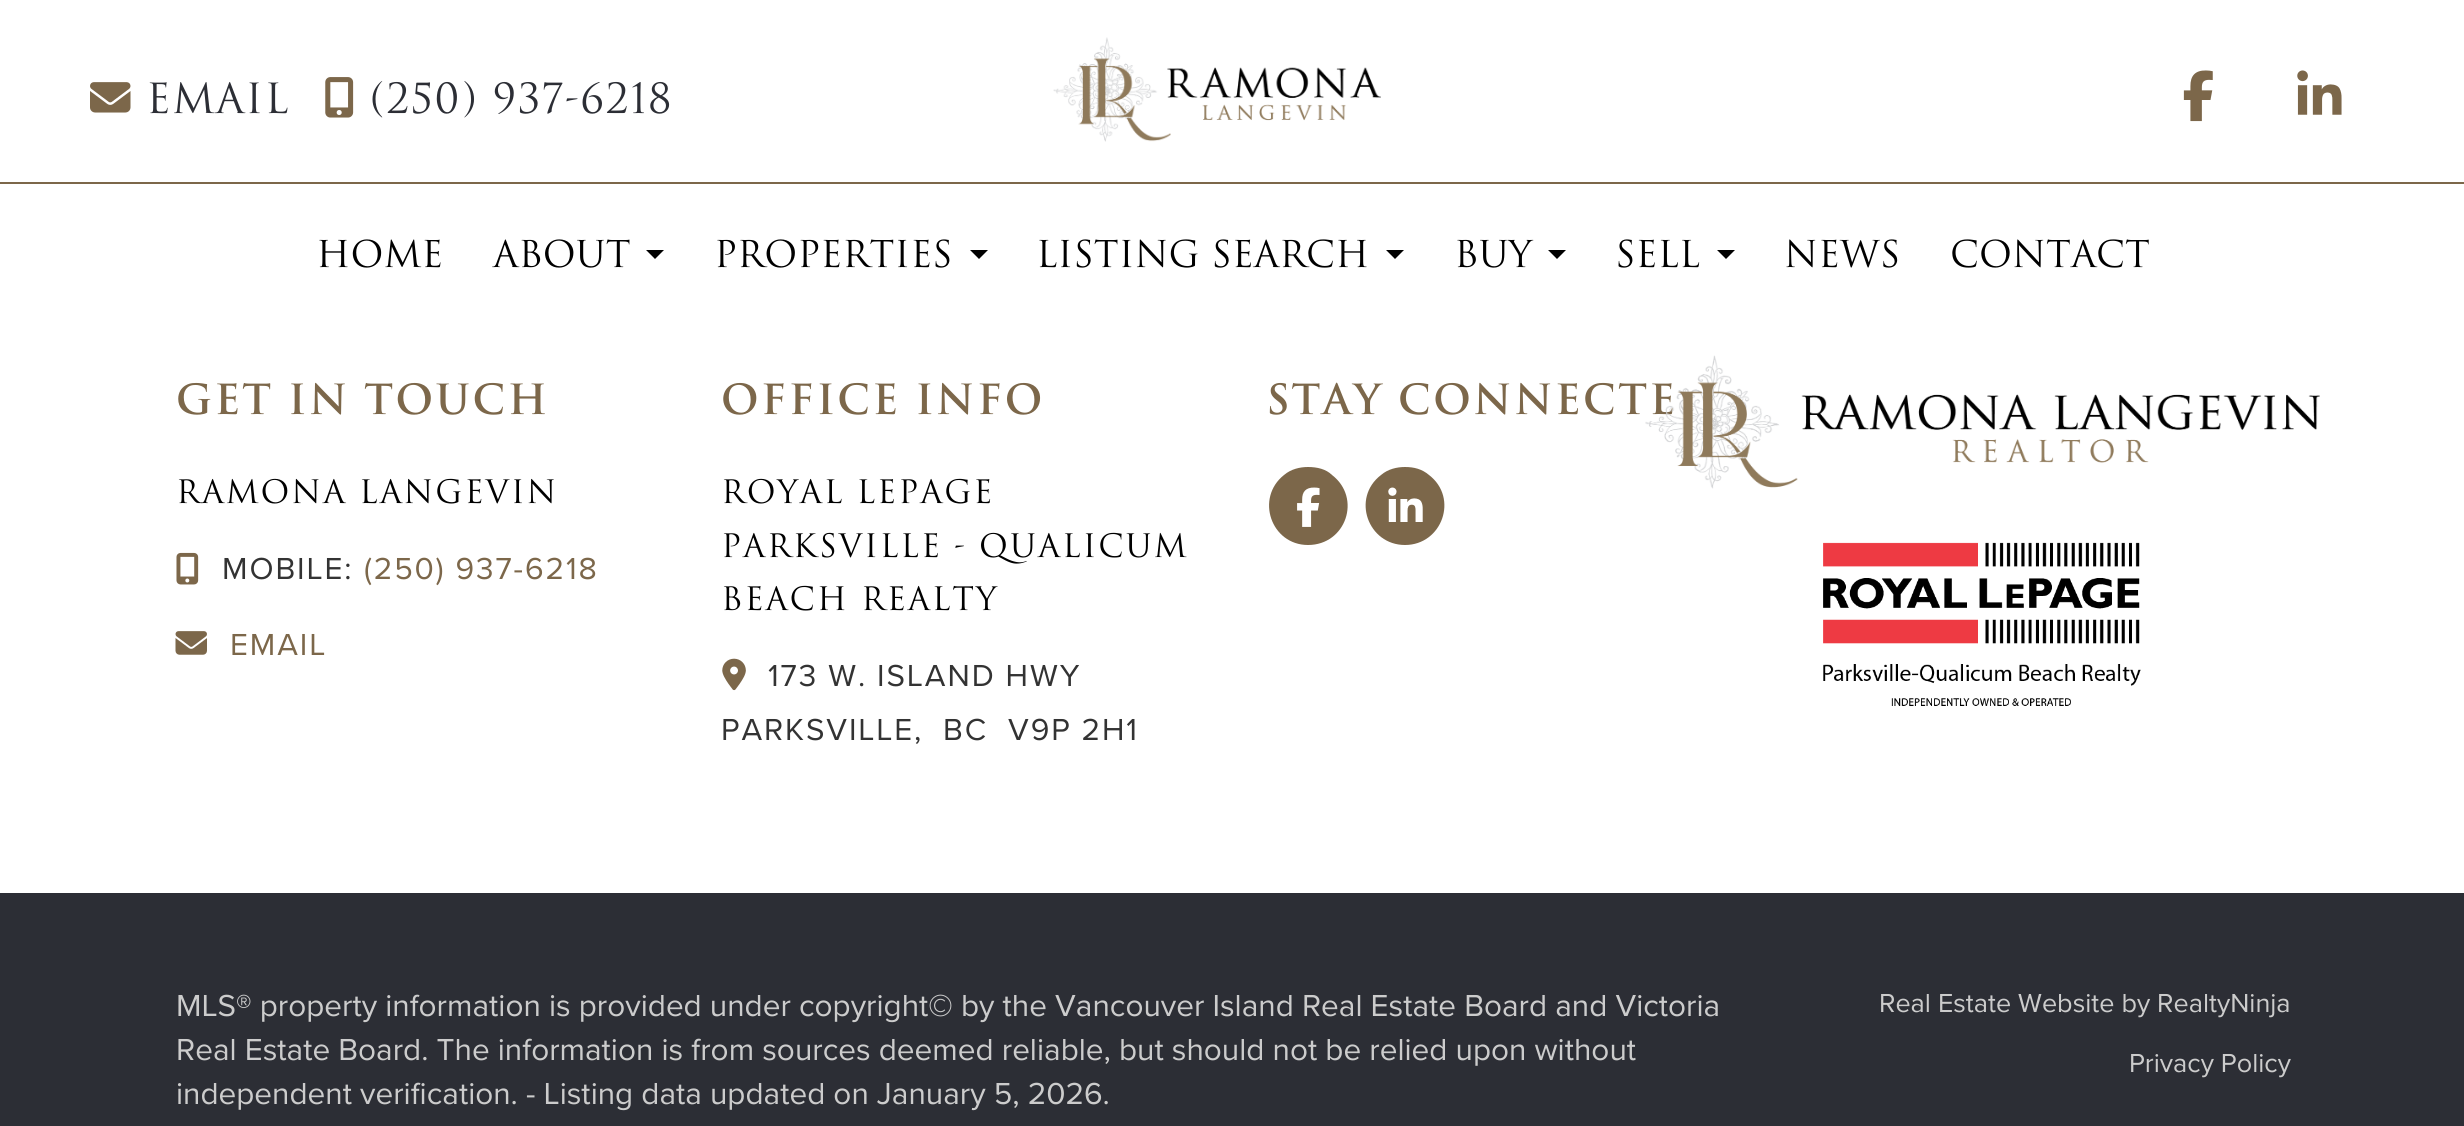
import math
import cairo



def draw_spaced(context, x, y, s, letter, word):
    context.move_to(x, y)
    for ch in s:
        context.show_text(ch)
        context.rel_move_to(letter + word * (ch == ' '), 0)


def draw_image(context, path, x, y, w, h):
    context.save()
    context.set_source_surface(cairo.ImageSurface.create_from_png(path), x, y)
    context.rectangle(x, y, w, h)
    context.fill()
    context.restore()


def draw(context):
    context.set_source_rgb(1, 1, 1)
    context.paint()
    draw_image(context, "images/1.png", 90, 82, 41, 31)
    draw_image(context, "images/2.png", 325, 77, 29, 41)
    draw_image(context, "images/3.png", 2183, 70, 30, 52)
    draw_image(context, "images/4.png", 2297, 70, 45, 45)
    draw_image(context, "images/5.png", 1053, 37, 328, 105)
    context.set_source_rgb(124 / 255, 103 / 255, 74 / 255)
    context.rectangle(0, 182, 2464, 2)
    context.fill()
    context.set_source_rgb(0, 0, 0)
    context.new_path()
    context.move_to(646, 250)
    context.line_to(664, 250)
    context.line_to(655, 259)
    context.close_path()
    context.fill()
    context.new_path()
    context.move_to(970, 250)
    context.line_to(988, 250)
    context.line_to(979, 259)
    context.close_path()
    context.fill()
    context.new_path()
    context.move_to(1386, 250)
    context.line_to(1404, 250)
    context.line_to(1395, 259)
    context.close_path()
    context.fill()
    context.new_path()
    context.move_to(1548, 250)
    context.line_to(1566, 250)
    context.line_to(1557, 259)
    context.close_path()
    context.fill()
    context.new_path()
    context.move_to(1717, 250)
    context.line_to(1735, 250)
    context.line_to(1726, 259)
    context.close_path()
    context.fill()
    draw_image(context, "images/6.png", 176, 552, 23, 33)
    draw_image(context, "images/7.png", 175, 631, 32, 24)
    draw_image(context, "images/8.png", 722, 658, 24, 33)
    context.set_source_rgb(124 / 255, 103 / 255, 74 / 255)
    context.new_path()
    context.move_to(1308, 545)
    context.curve_to(1346, 545, 1362, 498, 1332, 475)
    context.curve_to(1326, 469, 1317, 467, 1308, 467)
    context.curve_to(1300, 467, 1291, 469, 1284, 475)
    context.curve_to(1255, 498, 1271, 545, 1308, 545)
    context.close_path()
    context.fill()
    draw_image(context, "images/9.png", 1297, 487, 23, 40)
    context.new_path()
    context.move_to(1405, 545)
    context.curve_to(1442, 545, 1459, 498, 1429, 475)
    context.curve_to(1422, 469, 1414, 467, 1405, 467)
    context.curve_to(1397, 467, 1388, 469, 1381, 475)
    context.curve_to(1351, 498, 1368, 545, 1405, 545)
    context.close_path()
    context.fill()
    draw_image(context, "images/10.png", 1388, 487, 35, 35)
    draw_image(context, "images/12.png", 1823, 542, 318, 164)
    context.set_source_rgb(44 / 255, 46 / 255, 53 / 255)
    context.rectangle(0, 893, 2464, 233)
    context.fill()
    context.select_font_face("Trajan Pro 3")
    context.set_font_size(40.5)
    draw_spaced(context, 146, 113, "EMAIL", 1.25, 0)
    draw_spaced(context, 370, 113, "(250) 937-6218", 1.25, 0)
    context.set_font_size(36)
    context.set_source_rgb(0, 0, 0)
    context.move_to(316, 267)
    context.show_text("HOME")
    context.move_to(493, 267)
    context.show_text("ABOUT")
    context.move_to(714, 267)
    context.show_text("PROPERTIES")
    context.move_to(1036, 267)
    context.show_text("LISTING SEARCH")
    context.move_to(1454, 267)
    context.show_text("BUY")
    context.move_to(1615, 267)
    context.show_text("SELL")
    context.move_to(1784, 267)
    context.show_text("NEWS")
    context.move_to(1950, 267)
    context.show_text("CONTACT")
    context.select_font_face("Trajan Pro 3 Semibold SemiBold")
    context.set_font_size(40.5)
    context.set_source_rgb(124 / 255, 103 / 255, 74 / 255)
    draw_spaced(context, 176, 414, "GET IN TOUCH", 2.5, 0)
    context.select_font_face("Trajan Pro 3")
    context.set_font_size(31.5)
    context.set_source_rgb(0, 0, 0)
    draw_spaced(context, 176, 503, "RAMONA LANGEVIN", 1.9, 0)
    context.select_font_face("Proxima Nova")
    context.set_source_rgb(51 / 255, 51 / 255, 51 / 255)
    draw_spaced(context, 222, 579, "MOBILE:", 1.9, 0)
    context.set_source_rgb(124 / 255, 103 / 255, 74 / 255)
    draw_spaced(context, 364, 579, "(250) 937-6218", 1.9, 0)
    draw_spaced(context, 230, 655, "EMAIL", 1.9, 0)
    context.select_font_face("Trajan Pro 3 Semibold SemiBold")
    context.set_font_size(40.5)
    draw_spaced(context, 721, 414, "OFFICE INFO", 2.5, 0)
    context.select_font_face("Trajan Pro 3")
    context.set_font_size(31.5)
    context.set_source_rgb(0, 0, 0)
    draw_spaced(context, 721, 503, "ROYAL LEPAGE", 1.9, 0)
    draw_spaced(context, 721, 557, "PARKSVILLE - QUALICUM", 1.9, 0)
    draw_spaced(context, 721, 610, "BEACH REALTY", 1.9, 0)
    context.select_font_face("Proxima Nova")
    context.set_source_rgb(51 / 255, 51 / 255, 51 / 255)
    draw_spaced(context, 768, 686, "173 W. ISLAND HWY", 1.9, 0)
    draw_spaced(context, 721, 740, "PARKSVILLE,", 1.9, 0)
    draw_spaced(context, 943, 740, "BC", 1.9, 0)
    draw_spaced(context, 1008, 740, "V9P 2H1", 1.9, 0)
    context.select_font_face("Trajan Pro 3 Semibold SemiBold")
    context.set_font_size(40.5)
    context.set_source_rgb(124 / 255, 103 / 255, 74 / 255)
    draw_spaced(context, 1267, 414, "STAY CONNECTE", 2.5, 0)
    draw_image(context, "images/11.png", 1645, 355, 675, 134)
    context.select_font_face("Proxima Nova")
    context.set_font_size(31.5)
    context.set_source_rgb(204 / 255, 204 / 255, 204 / 255)
    context.move_to(176, 1016)
    context.show_text("MLS® property information is provided under copyright© by the Vancouver Island Real Estate Board and Victoria")
    context.move_to(176, 1060)
    context.show_text("Real Estate Board. The information is from sources deemed reliable, but should not be relied upon without")
    context.move_to(176, 1104)
    context.show_text("independent verification. - Listing data updated on January 5, 2026.")
    context.set_font_size(27)
    context.move_to(1879, 1012)
    context.show_text("Real Estate Website by RealtyNinja")
    context.move_to(2129, 1072)
    context.show_text("Privacy Policy")


surface = cairo.ImageSurface(cairo.Format.RGB24, 2464, 1126)
context = cairo.Context(surface)
options = cairo.FontOptions()
options.set_hint_metrics(cairo.HintMetrics.OFF)
options.set_hint_style(cairo.HintStyle.NONE)
context.set_font_options(options)
context.set_miter_limit(4)
draw(context)
surface.write_to_png("out.png")
